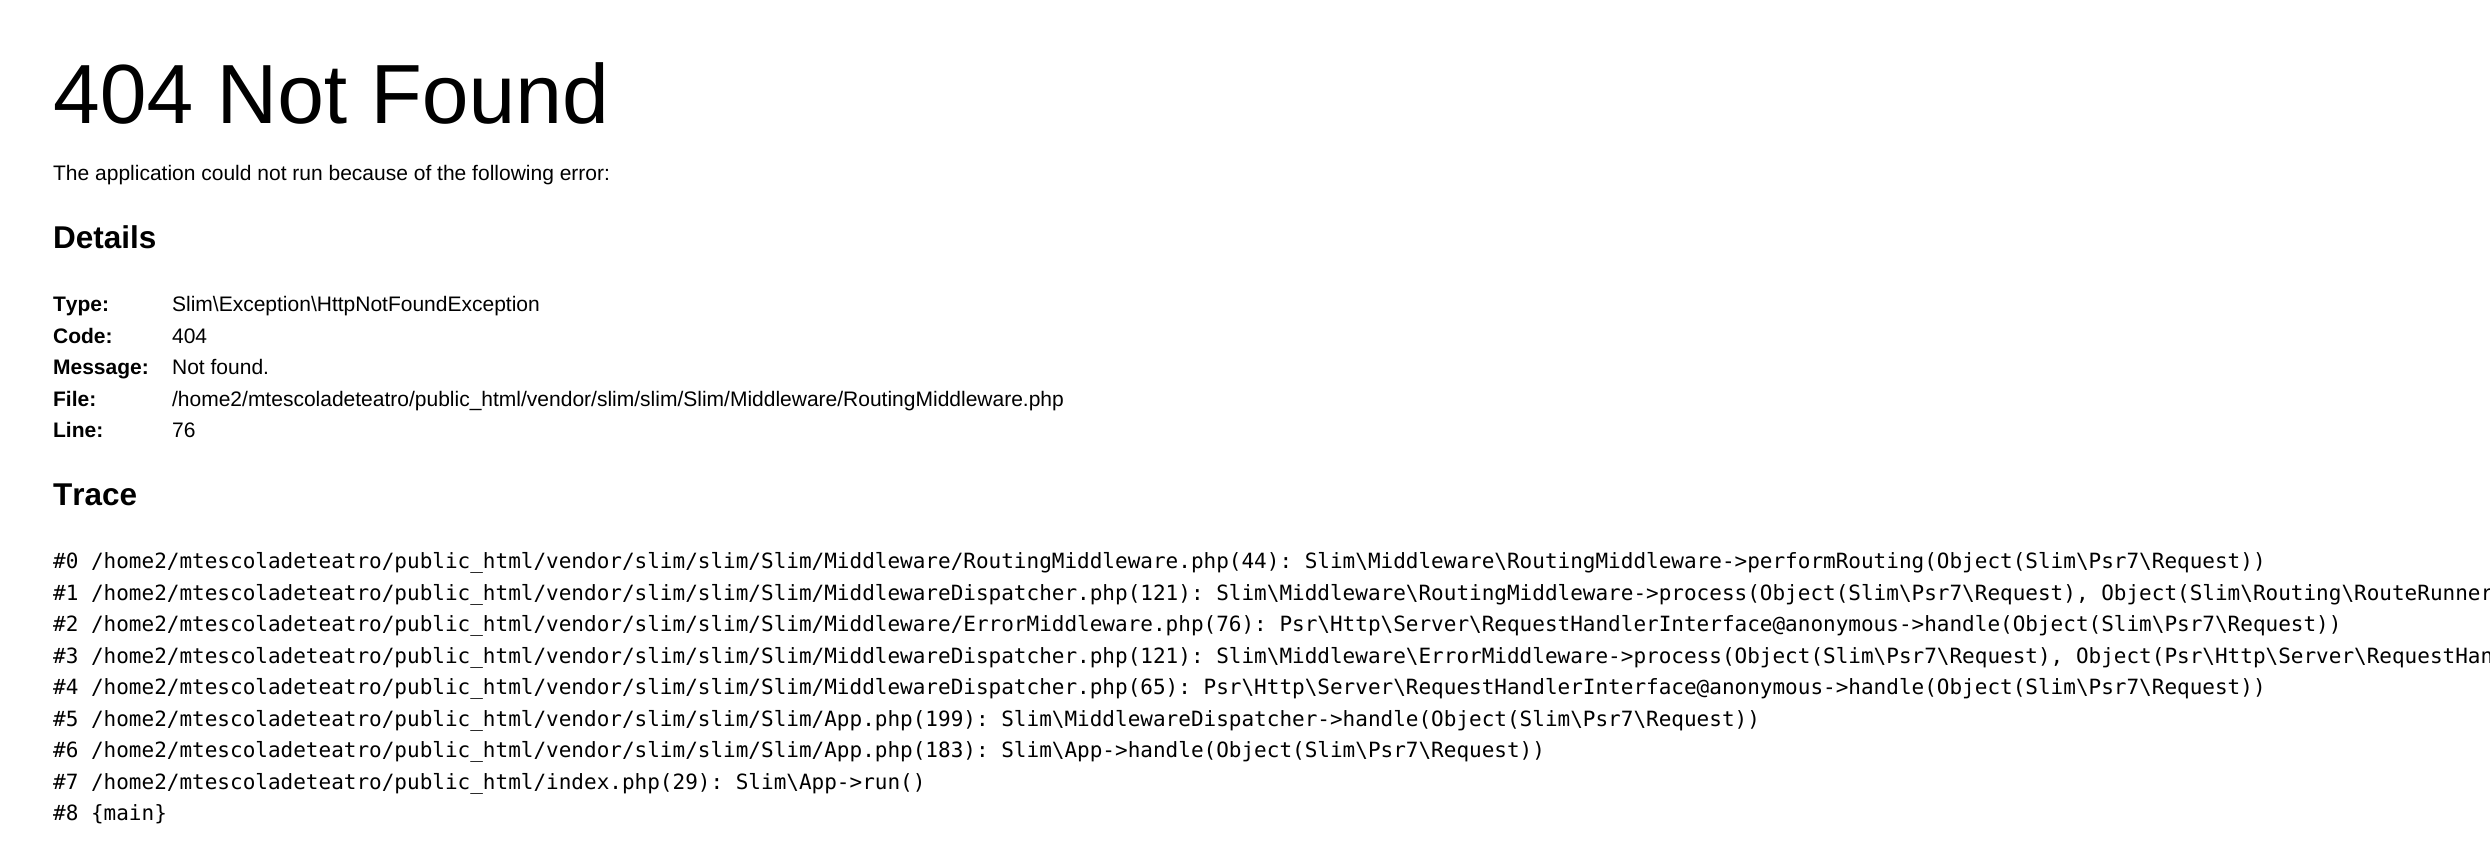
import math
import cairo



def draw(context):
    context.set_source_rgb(1, 1, 1)
    context.paint()
    context.select_font_face("Liberation Sans")
    context.set_font_size(84)
    context.set_source_rgb(0, 0, 0)
    context.move_to(53, 123)
    context.show_text("404 Not Found")
    context.set_font_size(21)
    context.move_to(53, 180)
    context.show_text("The application could not run because of the following error:")
    context.select_font_face("Liberation Sans", cairo.FontSlant.NORMAL, cairo.FontWeight.BOLD)
    context.set_font_size(31.5)
    context.move_to(53, 248)
    context.show_text("Details")
    context.set_font_size(21)
    context.move_to(53, 311)
    context.show_text("Type:")
    context.select_font_face("Liberation Sans")
    context.move_to(172, 311)
    context.show_text("Slim\\Exception\\HttpNotFoundException")
    context.select_font_face("Liberation Sans", cairo.FontSlant.NORMAL, cairo.FontWeight.BOLD)
    context.move_to(53, 343)
    context.show_text("Code:")
    context.select_font_face("Liberation Sans")
    context.move_to(172, 343)
    context.show_text("404")
    context.select_font_face("Liberation Sans", cairo.FontSlant.NORMAL, cairo.FontWeight.BOLD)
    context.move_to(53, 374)
    context.show_text("Message:")
    context.select_font_face("Liberation Sans")
    context.move_to(172, 374)
    context.show_text("Not found.")
    context.select_font_face("Liberation Sans", cairo.FontSlant.NORMAL, cairo.FontWeight.BOLD)
    context.move_to(53, 406)
    context.show_text("File:")
    context.select_font_face("Liberation Sans")
    context.move_to(172, 406)
    context.show_text("/home2/mtescoladeteatro/public_html/vendor/slim/slim/Slim/Middleware/RoutingMiddleware.php")
    context.select_font_face("Liberation Sans", cairo.FontSlant.NORMAL, cairo.FontWeight.BOLD)
    context.move_to(53, 437)
    context.show_text("Line:")
    context.select_font_face("Liberation Sans")
    context.move_to(172, 437)
    context.show_text("76")
    context.select_font_face("Liberation Sans", cairo.FontSlant.NORMAL, cairo.FontWeight.BOLD)
    context.set_font_size(31.5)
    context.move_to(53, 505)
    context.show_text("Trace")
    context.select_font_face("DejaVu Sans Mono")
    context.set_font_size(21)
    context.move_to(53, 568)
    context.show_text("#0 /home2/mtescoladeteatro/public_html/vendor/slim/slim/Slim/Middleware/RoutingMiddleware.php(44): Slim\\Middleware\\RoutingMiddleware->performRouting(Object(Slim\\Psr7\\Request))")
    context.move_to(53, 600)
    context.show_text("#1 /home2/mtescoladeteatro/public_html/vendor/slim/slim/Slim/MiddlewareDispatcher.php(121): Slim\\Middleware\\RoutingMiddleware->process(Object(Slim\\Psr7\\Request), Object(Slim\\Routing\\RouteRunner")
    context.move_to(53, 631)
    context.show_text("#2 /home2/mtescoladeteatro/public_html/vendor/slim/slim/Slim/Middleware/ErrorMiddleware.php(76): Psr\\Http\\Server\\RequestHandlerInterface@anonymous->handle(Object(Slim\\Psr7\\Request))")
    context.move_to(53, 663)
    context.show_text("#3 /home2/mtescoladeteatro/public_html/vendor/slim/slim/Slim/MiddlewareDispatcher.php(121): Slim\\Middleware\\ErrorMiddleware->process(Object(Slim\\Psr7\\Request), Object(Psr\\Http\\Server\\RequestHan")
    context.move_to(53, 694)
    context.show_text("#4 /home2/mtescoladeteatro/public_html/vendor/slim/slim/Slim/MiddlewareDispatcher.php(65): Psr\\Http\\Server\\RequestHandlerInterface@anonymous->handle(Object(Slim\\Psr7\\Request))")
    context.move_to(53, 726)
    context.show_text("#5 /home2/mtescoladeteatro/public_html/vendor/slim/slim/Slim/App.php(199): Slim\\MiddlewareDispatcher->handle(Object(Slim\\Psr7\\Request))")
    context.move_to(53, 757)
    context.show_text("#6 /home2/mtescoladeteatro/public_html/vendor/slim/slim/Slim/App.php(183): Slim\\App->handle(Object(Slim\\Psr7\\Request))")
    context.move_to(53, 789)
    context.show_text("#7 /home2/mtescoladeteatro/public_html/index.php(29): Slim\\App->run()")
    context.move_to(53, 820)
    context.show_text("#8 {main}")


surface = cairo.ImageSurface(cairo.Format.RGB24, 2490, 859)
context = cairo.Context(surface)
options = cairo.FontOptions()
options.set_hint_metrics(cairo.HintMetrics.OFF)
options.set_hint_style(cairo.HintStyle.NONE)
context.set_font_options(options)
context.set_miter_limit(4)
draw(context)
surface.write_to_png("out.png")
